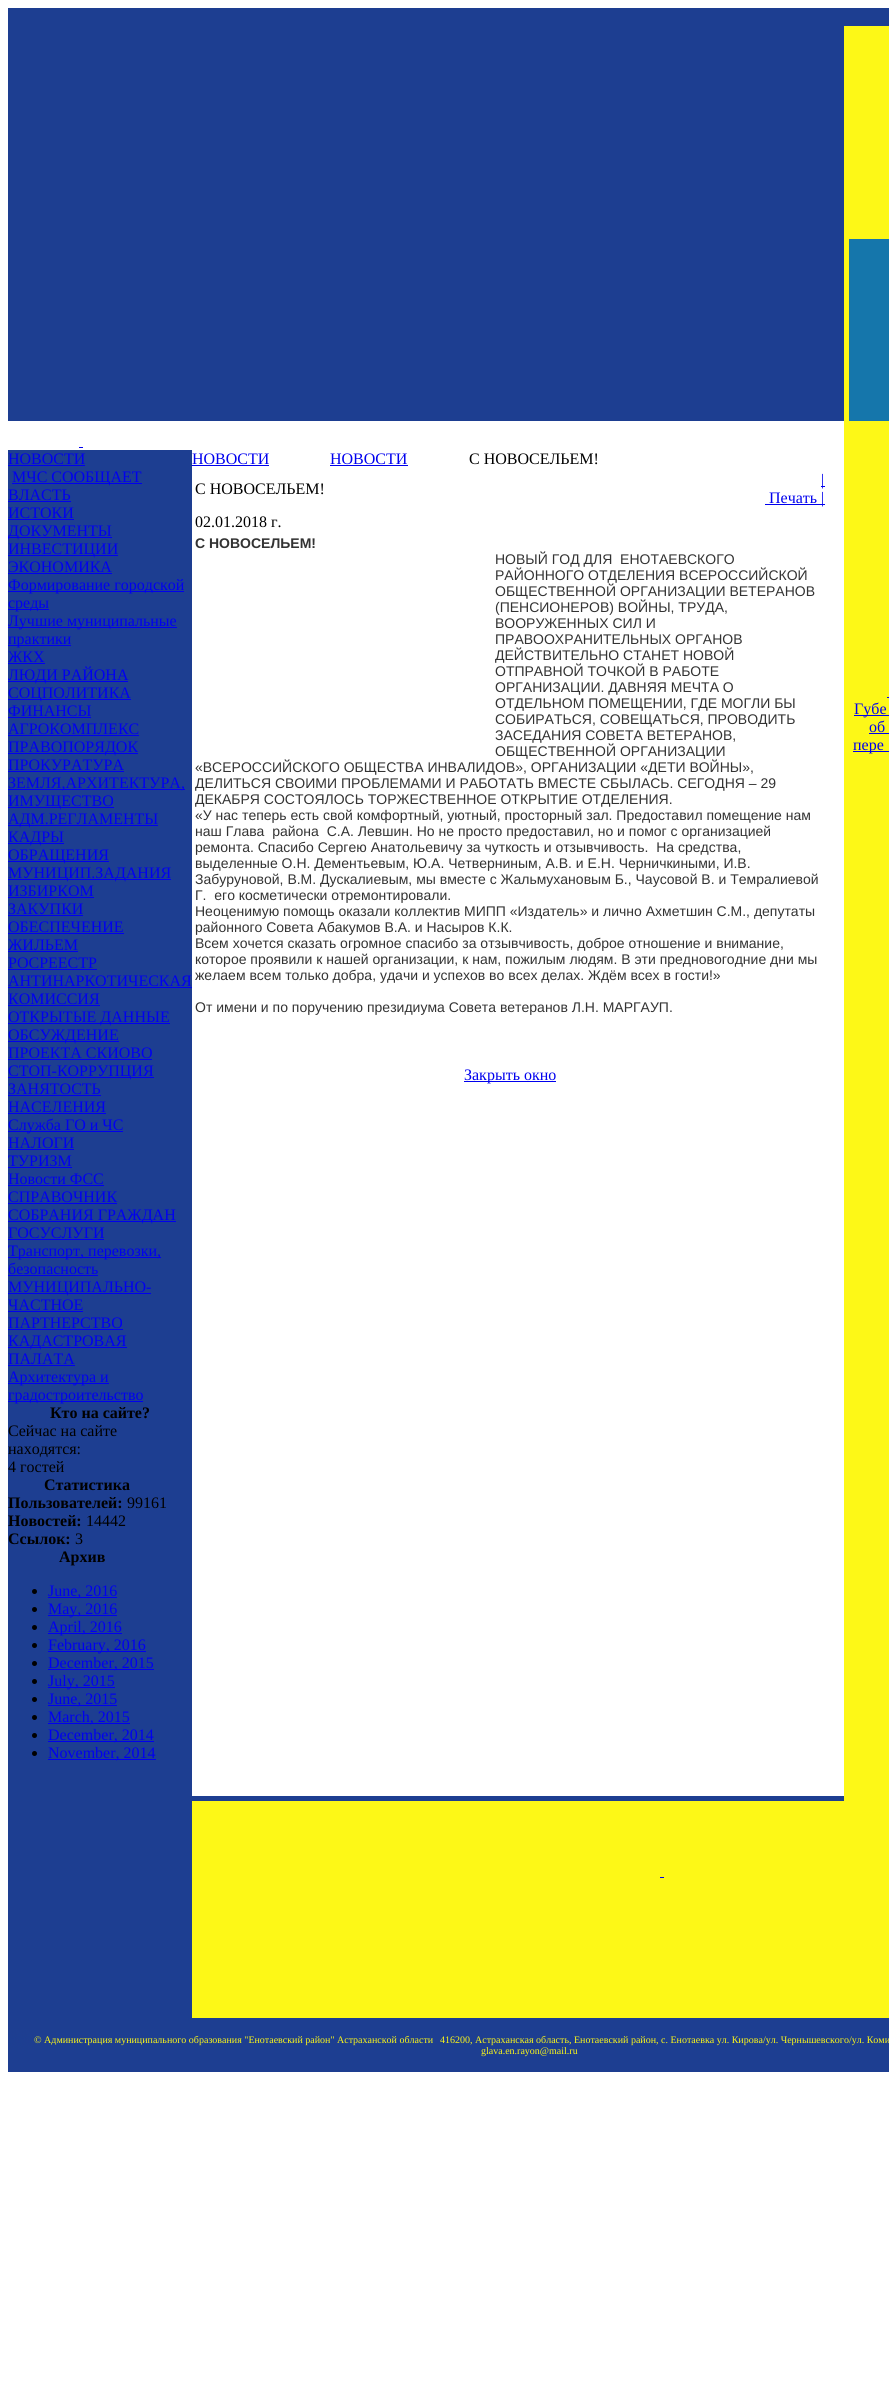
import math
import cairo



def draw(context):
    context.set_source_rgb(1, 1, 1)
    context.paint()
    context.set_source_rgb(29 / 255, 62 / 255, 145 / 255)
    context.rectangle(8, 8, 881, 18)
    context.fill()
    context.rectangle(8, 26, 836, 395)
    context.fill()
    context.set_source_rgb(253 / 255, 248 / 255, 23 / 255)
    context.rectangle(844, 26, 45, 395)
    context.fill()
    context.set_source_rgb(21 / 255, 118 / 255, 171 / 255)
    context.rectangle(849, 239, 40, 182)
    context.fill()
    context.set_source_rgb(0, 0, 238 / 255)
    context.rectangle(79, 447, 4, 1)
    context.fill()
    context.set_source_rgb(253 / 255, 248 / 255, 23 / 255)
    context.rectangle(844, 421, 45, 29)
    context.fill()
    context.set_source_rgb(29 / 255, 62 / 255, 145 / 255)
    context.rectangle(8, 450, 184, 1568)
    context.fill()
    context.set_source_rgb(0, 0, 238 / 255)
    context.rectangle(8, 465, 77, 1)
    context.fill()
    context.rectangle(12, 483, 130, 1)
    context.fill()
    context.rectangle(8, 501, 63, 1)
    context.fill()
    context.rectangle(8, 519, 66, 1)
    context.fill()
    context.rectangle(8, 537, 104, 1)
    context.fill()
    context.rectangle(8, 555, 110, 1)
    context.fill()
    context.rectangle(8, 573, 104, 1)
    context.fill()
    context.rectangle(8, 591, 176, 1)
    context.fill()
    context.rectangle(8, 609, 41, 1)
    context.fill()
    context.rectangle(8, 627, 169, 1)
    context.fill()
    context.rectangle(8, 645, 63, 1)
    context.fill()
    context.rectangle(8, 663, 37, 1)
    context.fill()
    context.rectangle(8, 681, 120, 1)
    context.fill()
    context.rectangle(8, 699, 123, 1)
    context.fill()
    context.rectangle(8, 717, 83, 1)
    context.fill()
    context.rectangle(8, 735, 131, 1)
    context.fill()
    context.rectangle(8, 753, 130, 1)
    context.fill()
    context.rectangle(8, 771, 116, 1)
    context.fill()
    context.rectangle(8, 789, 177, 1)
    context.fill()
    context.rectangle(8, 807, 106, 1)
    context.fill()
    context.rectangle(8, 825, 150, 1)
    context.fill()
    context.rectangle(8, 843, 56, 1)
    context.fill()
    context.rectangle(8, 861, 101, 1)
    context.fill()
    context.rectangle(8, 879, 163, 1)
    context.fill()
    context.rectangle(8, 897, 86, 1)
    context.fill()
    context.rectangle(8, 915, 75, 1)
    context.fill()
    context.rectangle(8, 933, 116, 1)
    context.fill()
    context.rectangle(8, 951, 70, 1)
    context.fill()
    context.rectangle(8, 969, 89, 1)
    context.fill()
    context.rectangle(8, 987, 184, 1)
    context.fill()
    context.rectangle(8, 1005, 92, 1)
    context.fill()
    context.rectangle(8, 1023, 162, 1)
    context.fill()
    context.rectangle(8, 1041, 111, 1)
    context.fill()
    context.rectangle(8, 1059, 144, 1)
    context.fill()
    context.rectangle(8, 1077, 146, 1)
    context.fill()
    context.rectangle(8, 1095, 93, 1)
    context.fill()
    context.rectangle(8, 1113, 98, 1)
    context.fill()
    context.rectangle(8, 1131, 115, 1)
    context.fill()
    context.rectangle(8, 1149, 66, 1)
    context.fill()
    context.rectangle(8, 1167, 64, 1)
    context.fill()
    context.rectangle(8, 1185, 96, 1)
    context.fill()
    context.rectangle(8, 1203, 109, 1)
    context.fill()
    context.rectangle(8, 1221, 168, 1)
    context.fill()
    context.rectangle(8, 1239, 96, 1)
    context.fill()
    context.rectangle(8, 1257, 153, 1)
    context.fill()
    context.rectangle(8, 1275, 90, 1)
    context.fill()
    context.rectangle(8, 1293, 143, 1)
    context.fill()
    context.rectangle(8, 1311, 75, 1)
    context.fill()
    context.rectangle(8, 1329, 115, 1)
    context.fill()
    context.rectangle(8, 1347, 119, 1)
    context.fill()
    context.rectangle(8, 1365, 67, 1)
    context.fill()
    context.rectangle(8, 1383, 101, 1)
    context.fill()
    context.rectangle(8, 1401, 135, 1)
    context.fill()
    context.set_source_rgb(0, 0, 0)
    context.arc(34.5, 1591.5, 2.5, 0, 2 * math.pi)
    context.fill()
    context.set_source_rgb(0, 0, 238 / 255)
    context.rectangle(48, 1597, 69, 1)
    context.fill()
    context.set_source_rgb(0, 0, 0)
    context.arc(34.5, 1609.5, 2.5, 0, 2 * math.pi)
    context.fill()
    context.set_source_rgb(0, 0, 238 / 255)
    context.rectangle(48, 1615, 69, 1)
    context.fill()
    context.set_source_rgb(0, 0, 0)
    context.arc(34.5, 1627.5, 2.5, 0, 2 * math.pi)
    context.fill()
    context.set_source_rgb(0, 0, 238 / 255)
    context.rectangle(48, 1633, 74, 1)
    context.fill()
    context.set_source_rgb(0, 0, 0)
    context.arc(34.5, 1645.5, 2.5, 0, 2 * math.pi)
    context.fill()
    context.set_source_rgb(0, 0, 238 / 255)
    context.rectangle(48, 1651, 98, 1)
    context.fill()
    context.set_source_rgb(0, 0, 0)
    context.arc(34.5, 1663.5, 2.5, 0, 2 * math.pi)
    context.fill()
    context.set_source_rgb(0, 0, 238 / 255)
    context.rectangle(48, 1669, 106, 1)
    context.fill()
    context.set_source_rgb(0, 0, 0)
    context.arc(34.5, 1681.5, 2.5, 0, 2 * math.pi)
    context.fill()
    context.set_source_rgb(0, 0, 238 / 255)
    context.rectangle(48, 1687, 67, 1)
    context.fill()
    context.set_source_rgb(0, 0, 0)
    context.arc(34.5, 1699.5, 2.5, 0, 2 * math.pi)
    context.fill()
    context.set_source_rgb(0, 0, 238 / 255)
    context.rectangle(48, 1705, 69, 1)
    context.fill()
    context.set_source_rgb(0, 0, 0)
    context.arc(34.5, 1717.5, 2.5, 0, 2 * math.pi)
    context.fill()
    context.set_source_rgb(0, 0, 238 / 255)
    context.rectangle(48, 1723, 82, 1)
    context.fill()
    context.set_source_rgb(0, 0, 0)
    context.arc(34.5, 1735.5, 2.5, 0, 2 * math.pi)
    context.fill()
    context.set_source_rgb(0, 0, 238 / 255)
    context.rectangle(48, 1741, 106, 1)
    context.fill()
    context.set_source_rgb(0, 0, 0)
    context.arc(34.5, 1753.5, 2.5, 0, 2 * math.pi)
    context.fill()
    context.set_source_rgb(0, 0, 238 / 255)
    context.rectangle(48, 1759, 108, 1)
    context.fill()
    context.rectangle(192, 465, 77, 1)
    context.fill()
    context.rectangle(330, 465, 78, 1)
    context.fill()
    context.rectangle(821, 486, 4, 1)
    context.fill()
    context.rectangle(765, 504, 60, 1)
    context.fill()
    context.rectangle(464, 1081, 92, 1)
    context.fill()
    context.set_source_rgb(253 / 255, 248 / 255, 23 / 255)
    context.rectangle(844, 450, 45, 1328)
    context.fill()
    context.set_source_rgb(0, 0, 238 / 255)
    context.rectangle(887, 697, 2, 1)
    context.fill()
    context.rectangle(854, 715, 35, 1)
    context.fill()
    context.rectangle(869, 733, 20, 1)
    context.fill()
    context.rectangle(853, 751, 36, 1)
    context.fill()
    context.set_source_rgb(253 / 255, 248 / 255, 23 / 255)
    context.rectangle(844, 1778, 45, 18)
    context.fill()
    context.set_source_rgb(29 / 255, 62 / 255, 145 / 255)
    context.rectangle(192, 1796, 652, 5)
    context.fill()
    context.set_source_rgb(253 / 255, 248 / 255, 23 / 255)
    context.rectangle(844, 1796, 45, 5)
    context.fill()
    context.rectangle(192, 1801, 697, 217)
    context.fill()
    context.set_source_rgb(0, 0, 238 / 255)
    context.rectangle(660, 1877, 4, 1)
    context.fill()
    context.set_source_rgb(29 / 255, 62 / 255, 145 / 255)
    context.rectangle(8, 2018, 881, 54)
    context.fill()
    context.select_font_face("Liberation Serif")
    context.set_font_size(16)
    context.set_source_rgb(0, 0, 238 / 255)
    context.move_to(8, 464)
    context.show_text("НОВОСТИ")
    context.move_to(12, 482)
    context.show_text("МЧС СООБЩАЕТ")
    context.move_to(8, 500)
    context.show_text("ВЛАСТЬ")
    context.move_to(8, 518)
    context.show_text("ИСТОКИ")
    context.move_to(8, 536)
    context.show_text("ДОКУМЕНТЫ")
    context.move_to(8, 554)
    context.show_text("ИНВЕСТИЦИИ")
    context.move_to(8, 572)
    context.show_text("ЭКОНОМИКА")
    context.move_to(8, 590)
    context.show_text("Формирование городской")
    context.move_to(8, 608)
    context.show_text("среды")
    context.move_to(8, 626)
    context.show_text("Лучшие муниципальные")
    context.move_to(8, 644)
    context.show_text("практики")
    context.move_to(8, 662)
    context.show_text("ЖКХ")
    context.move_to(8, 680)
    context.show_text("ЛЮДИ РАЙОНА")
    context.move_to(8, 698)
    context.show_text("СОЦПОЛИТИКА")
    context.move_to(8, 716)
    context.show_text("ФИНАНСЫ")
    context.move_to(8, 734)
    context.show_text("АГРОКОМПЛЕКС")
    context.move_to(8, 752)
    context.show_text("ПРАВОПОРЯДОК")
    context.move_to(8, 770)
    context.show_text("ПРОКУРАТУРА")
    context.move_to(8, 788)
    context.show_text("ЗЕМЛЯ,АРХИТЕКТУРА,")
    context.move_to(8, 806)
    context.show_text("ИМУЩЕСТВО")
    context.move_to(8, 824)
    context.show_text("АДМ.РЕГЛАМЕНТЫ")
    context.move_to(8, 842)
    context.show_text("КАДРЫ")
    context.move_to(8, 860)
    context.show_text("ОБРАЩЕНИЯ")
    context.move_to(8, 878)
    context.show_text("МУНИЦИП.ЗАДАНИЯ")
    context.move_to(8, 896)
    context.show_text("ИЗБИРКОМ")
    context.move_to(8, 914)
    context.show_text("ЗАКУПКИ")
    context.move_to(8, 932)
    context.show_text("ОБЕСПЕЧЕНИЕ")
    context.move_to(8, 950)
    context.show_text("ЖИЛЬЕМ")
    context.move_to(8, 968)
    context.show_text("РОСРЕЕСТР")
    context.move_to(8, 986)
    context.show_text("АНТИНАРКОТИЧЕСКАЯ")
    context.move_to(8, 1004)
    context.show_text("КОМИССИЯ")
    context.move_to(8, 1022)
    context.show_text("ОТКРЫТЫЕ ДАННЫЕ")
    context.move_to(8, 1040)
    context.show_text("ОБСУЖДЕНИЕ")
    context.move_to(8, 1058)
    context.show_text("ПРОЕКТА СКИОВО")
    context.move_to(8, 1076)
    context.show_text("СТОП-КОРРУПЦИЯ")
    context.move_to(8, 1094)
    context.show_text("ЗАНЯТОСТЬ")
    context.move_to(8, 1112)
    context.show_text("НАСЕЛЕНИЯ")
    context.move_to(8, 1130)
    context.show_text("Служба ГО и ЧС")
    context.move_to(8, 1148)
    context.show_text("НАЛОГИ")
    context.move_to(8, 1166)
    context.show_text("ТУРИЗМ")
    context.move_to(8, 1184)
    context.show_text("Новости ФСС")
    context.move_to(8, 1202)
    context.show_text("СПРАВОЧНИК")
    context.move_to(8, 1220)
    context.show_text("СОБРАНИЯ ГРАЖДАН")
    context.move_to(8, 1238)
    context.show_text("ГОСУСЛУГИ")
    context.move_to(8, 1256)
    context.show_text("Транспорт, перевозки,")
    context.move_to(8, 1274)
    context.show_text("безопасность")
    context.move_to(8, 1292)
    context.show_text("МУНИЦИПАЛЬНО-")
    context.move_to(8, 1310)
    context.show_text("ЧАСТНОЕ")
    context.move_to(8, 1328)
    context.show_text("ПАРТНЕРСТВО")
    context.move_to(8, 1346)
    context.show_text("КАДАСТРОВАЯ")
    context.move_to(8, 1364)
    context.show_text("ПАЛАТА")
    context.move_to(8, 1382)
    context.show_text("Архитектура и")
    context.move_to(8, 1400)
    context.show_text("градостроительство")
    context.select_font_face("Liberation Serif", cairo.FontSlant.NORMAL, cairo.FontWeight.BOLD)
    context.set_source_rgb(0, 0, 0)
    context.move_to(50, 1418)
    context.show_text("Кто на сайте?")
    context.select_font_face("Liberation Serif")
    context.move_to(8, 1436)
    context.show_text("Сейчас на сайте")
    context.move_to(8, 1454)
    context.show_text("находятся:")
    context.move_to(8, 1472)
    context.show_text("4 гостей")
    context.select_font_face("Liberation Serif", cairo.FontSlant.NORMAL, cairo.FontWeight.BOLD)
    context.move_to(44, 1490)
    context.show_text("Статистика")
    context.move_to(8, 1508)
    context.show_text("Пользователей:")
    context.select_font_face("Liberation Serif")
    context.move_to(127, 1508)
    context.show_text("99161")
    context.select_font_face("Liberation Serif", cairo.FontSlant.NORMAL, cairo.FontWeight.BOLD)
    context.move_to(8, 1526)
    context.show_text("Новостей:")
    context.select_font_face("Liberation Serif")
    context.move_to(86, 1526)
    context.show_text("14442")
    context.select_font_face("Liberation Serif", cairo.FontSlant.NORMAL, cairo.FontWeight.BOLD)
    context.move_to(8, 1544)
    context.show_text("Ссылок:")
    context.select_font_face("Liberation Serif")
    context.move_to(75, 1544)
    context.show_text("3")
    context.select_font_face("Liberation Serif", cairo.FontSlant.NORMAL, cairo.FontWeight.BOLD)
    context.move_to(59, 1562)
    context.show_text("Архив")
    context.select_font_face("Liberation Serif")
    context.set_source_rgb(0, 0, 238 / 255)
    context.move_to(48, 1596)
    context.show_text("June, 2016")
    context.move_to(48, 1614)
    context.show_text("May, 2016")
    context.move_to(48, 1632)
    context.show_text("April, 2016")
    context.move_to(48, 1650)
    context.show_text("February, 2016")
    context.move_to(48, 1668)
    context.show_text("December, 2015")
    context.move_to(48, 1686)
    context.show_text("July, 2015")
    context.move_to(48, 1704)
    context.show_text("June, 2015")
    context.move_to(48, 1722)
    context.show_text("March, 2015")
    context.move_to(48, 1740)
    context.show_text("December, 2014")
    context.move_to(48, 1758)
    context.show_text("November, 2014")
    context.move_to(192, 464)
    context.show_text("НОВОСТИ")
    context.move_to(330, 464)
    context.show_text("НОВОСТИ")
    context.set_source_rgb(0, 0, 0)
    context.move_to(469, 464)
    context.show_text("С НОВОСЕЛЬЕМ!")
    context.move_to(195, 494)
    context.show_text("С НОВОСЕЛЬЕМ!")
    context.set_source_rgb(0, 0, 238 / 255)
    context.move_to(821, 485)
    context.show_text("|")
    context.move_to(769, 503)
    context.show_text("Печать |")
    context.set_source_rgb(0, 0, 0)
    context.move_to(195, 527)
    context.show_text("02.01.2018 г.")
    context.select_font_face("Liberation Sans", cairo.FontSlant.NORMAL, cairo.FontWeight.BOLD)
    context.set_font_size(14)
    context.set_source_rgb(51 / 255, 51 / 255, 51 / 255)
    context.move_to(195, 548)
    context.show_text("С НОВОСЕЛЬЕМ!")
    context.select_font_face("Liberation Sans")
    context.move_to(495, 564)
    context.show_text("НОВЫЙ ГОД ДЛЯ  ЕНОТАЕВСКОГО")
    context.move_to(495, 580)
    context.show_text("РАЙОННОГО ОТДЕЛЕНИЯ ВСЕРОССИЙСКОЙ")
    context.move_to(495, 596)
    context.show_text("ОБЩЕСТВЕННОЙ ОРГАНИЗАЦИИ ВЕТЕРАНОВ")
    context.move_to(495, 612)
    context.show_text("(ПЕНСИОНЕРОВ) ВОЙНЫ, ТРУДА,")
    context.move_to(495, 628)
    context.show_text("ВООРУЖЕННЫХ СИЛ И")
    context.move_to(495, 644)
    context.show_text("ПРАВООХРАНИТЕЛЬНЫХ ОРГАНОВ")
    context.move_to(495, 660)
    context.show_text("ДЕЙСТВИТЕЛЬНО СТАНЕТ НОВОЙ")
    context.move_to(495, 676)
    context.show_text("ОТПРАВНОЙ ТОЧКОЙ В РАБОТЕ")
    context.move_to(495, 692)
    context.show_text("ОРГАНИЗАЦИИ. ДАВНЯЯ МЕЧТА О")
    context.move_to(495, 708)
    context.show_text("ОТДЕЛЬНОМ ПОМЕЩЕНИИ, ГДЕ МОГЛИ БЫ")
    context.move_to(495, 724)
    context.show_text("СОБИРАТЬСЯ, СОВЕЩАТЬСЯ, ПРОВОДИТЬ")
    context.move_to(495, 740)
    context.show_text("ЗАСЕДАНИЯ СОВЕТА ВЕТЕРАНОВ,")
    context.move_to(495, 756)
    context.show_text("ОБЩЕСТВЕННОЙ ОРГАНИЗАЦИИ")
    context.move_to(195, 772)
    context.show_text("«ВСЕРОССИЙСКОГО ОБЩЕСТВА ИНВАЛИДОВ», ОРГАНИЗАЦИИ «ДЕТИ ВОЙНЫ»,")
    context.move_to(195, 788)
    context.show_text("ДЕЛИТЬСЯ СВОИМИ ПРОБЛЕМАМИ И РАБОТАТЬ ВМЕСТЕ СБЫЛАСЬ. СЕГОДНЯ – 29")
    context.move_to(195, 804)
    context.show_text("ДЕКАБРЯ СОСТОЯЛОСЬ ТОРЖЕСТВЕННОЕ ОТКРЫТИЕ ОТДЕЛЕНИЯ.")
    context.move_to(195, 820)
    context.show_text("«У нас теперь есть свой комфортный, уютный, просторный зал. Предоставил помещение нам")
    context.move_to(195, 836)
    context.show_text("наш Глава  района  С.А. Левшин. Но не просто предоставил, но и помог с организацией")
    context.move_to(195, 852)
    context.show_text("ремонта. Спасибо Сергею Анатольевичу за чуткость и отзывчивость.  На средства,")
    context.move_to(195, 868)
    context.show_text("выделенные О.Н. Дементьевым, Ю.А. Четверниным, А.В. и Е.Н. Черничкиными, И.В.")
    context.move_to(195, 884)
    context.show_text("Забуруновой, В.М. Дускалиевым, мы вместе с Жальмухановым Б., Чаусовой В. и Темралиевой")
    context.move_to(195, 900)
    context.show_text("Г.  его косметически отремонтировали.")
    context.move_to(195, 916)
    context.show_text("Неоценимую помощь оказали коллектив МИПП «Издатель» и лично Ахметшин С.М., депутаты")
    context.move_to(195, 932)
    context.show_text("районного Совета Абакумов В.А. и Насыров К.К.")
    context.move_to(195, 948)
    context.show_text("Всем хочется сказать огромное спасибо за отзывчивость, доброе отношение и внимание,")
    context.move_to(195, 964)
    context.show_text("которое проявили к нашей организации, к нам, пожилым людям. В эти предновогодние дни мы")
    context.move_to(195, 980)
    context.show_text("желаем всем только добра, удачи и успехов во всех делах. Ждём всех в гости!»")
    context.move_to(195, 1012)
    context.show_text("От имени и по поручению президиума Совета ветеранов Л.Н. МАРГАУП.")
    context.select_font_face("Liberation Serif")
    context.set_font_size(16)
    context.set_source_rgb(0, 0, 238 / 255)
    context.move_to(464, 1080)
    context.show_text("Закрыть окно")
    context.move_to(854, 714)
    context.show_text("Губе")
    context.move_to(869, 732)
    context.show_text("об")
    context.move_to(853, 750)
    context.show_text("пере")
    context.set_font_size(10)
    context.set_source_rgb(253 / 255, 248 / 255, 23 / 255)
    context.move_to(34, 2043)
    context.show_text("© Администрация муниципального образования \"Енотаевский район\" Астраханской области")
    context.move_to(440, 2043)
    context.show_text("416200, Астраханская область, Енотаевский район, с. Енотаевка ул. Кирова/ул. Чернышевского/ул. Коми")
    context.move_to(481, 2054)
    context.show_text("glava.en.rayon@mail.ru")


surface = cairo.ImageSurface(cairo.Format.RGB24, 889, 2390)
context = cairo.Context(surface)
options = cairo.FontOptions()
options.set_hint_metrics(cairo.HintMetrics.OFF)
options.set_hint_style(cairo.HintStyle.NONE)
context.set_font_options(options)
context.set_miter_limit(4)
draw(context)
surface.write_to_png("out.png")
